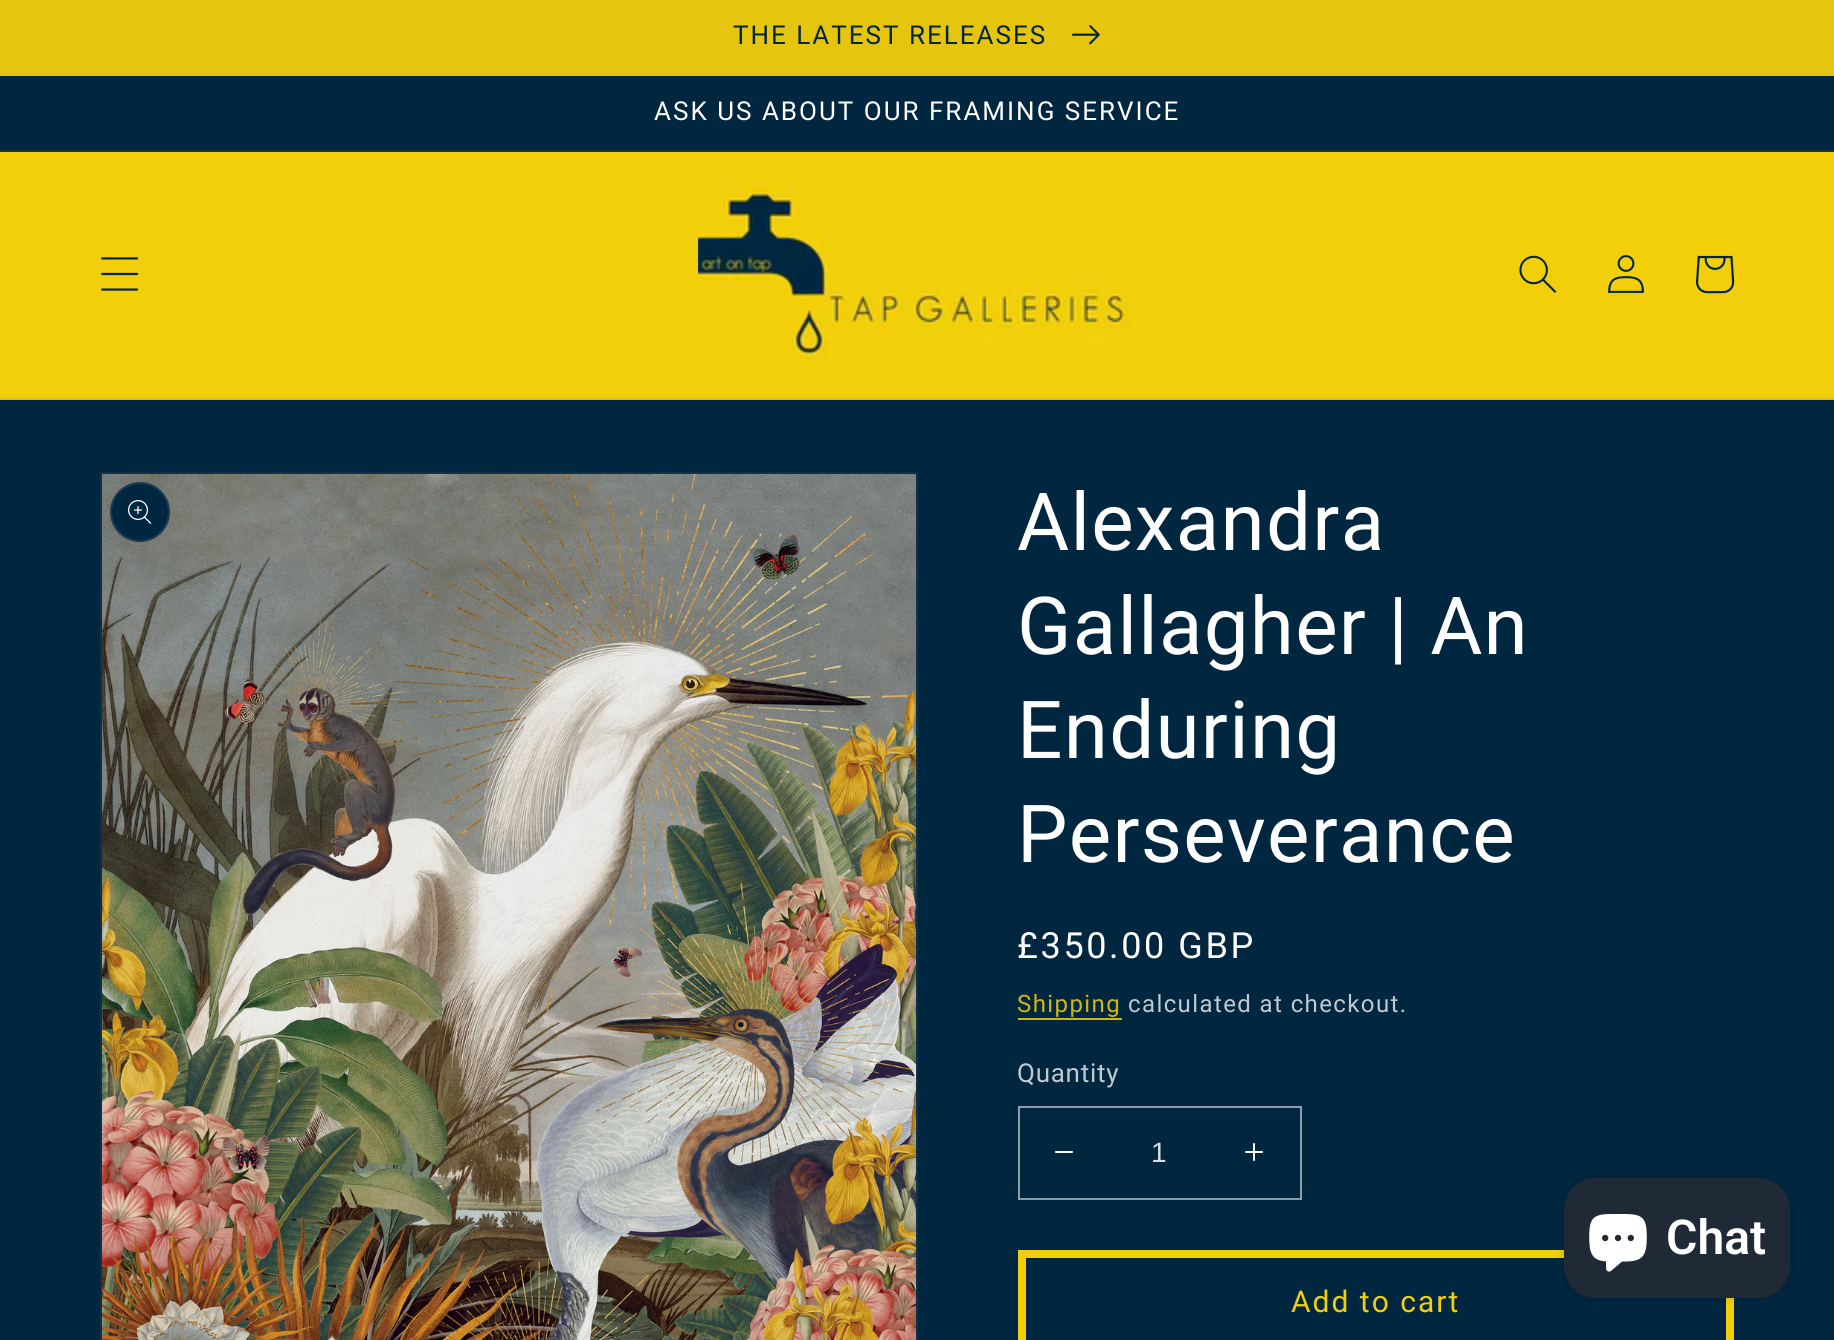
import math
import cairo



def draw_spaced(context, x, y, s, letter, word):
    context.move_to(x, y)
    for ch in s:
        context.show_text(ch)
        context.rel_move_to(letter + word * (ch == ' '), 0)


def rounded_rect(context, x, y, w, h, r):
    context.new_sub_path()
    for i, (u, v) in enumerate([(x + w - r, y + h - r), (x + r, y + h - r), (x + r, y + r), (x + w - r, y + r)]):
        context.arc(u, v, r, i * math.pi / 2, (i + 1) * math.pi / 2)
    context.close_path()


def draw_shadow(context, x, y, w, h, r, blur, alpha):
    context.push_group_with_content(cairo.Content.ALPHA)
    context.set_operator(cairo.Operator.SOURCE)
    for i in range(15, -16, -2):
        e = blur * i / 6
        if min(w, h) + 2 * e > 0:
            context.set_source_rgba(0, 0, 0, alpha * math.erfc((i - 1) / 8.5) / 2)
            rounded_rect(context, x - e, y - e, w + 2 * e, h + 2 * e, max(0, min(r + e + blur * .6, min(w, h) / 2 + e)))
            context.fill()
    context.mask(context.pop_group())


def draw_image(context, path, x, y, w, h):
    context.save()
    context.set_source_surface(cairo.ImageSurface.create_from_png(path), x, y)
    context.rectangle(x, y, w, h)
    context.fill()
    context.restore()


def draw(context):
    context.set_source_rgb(1 / 255, 38 / 255, 64 / 255)
    context.paint()
    context.set_source_rgb(224 / 255, 193 / 255, 15 / 255)
    context.rectangle(0, 74, 1834, 2)
    context.fill()
    context.set_source_rgb(229 / 255, 197 / 255, 14 / 255)
    context.rectangle(0, 0, 1834, 74)
    context.fill()
    draw_image(context, "images/1.png", 1072, 25, 28, 20)
    context.set_source_rgb(21 / 255, 55 / 255, 79 / 255)
    context.rectangle(0, 150, 1834, 2)
    context.fill()
    context.set_source_rgb(243 / 255, 207 / 255, 11 / 255)
    context.rectangle(0, 152, 1834, 246)
    context.fill()
    context.set_source_rgb(224 / 255, 193 / 255, 15 / 255)
    context.rectangle(0, 398, 1834, 2)
    context.fill()
    draw_image(context, "images/2.png", 101, 257, 38, 34)
    draw_image(context, "images/3.png", 698, 186, 432, 176)
    draw_image(context, "images/4.png", 1519, 255, 37, 38)
    draw_image(context, "images/5.png", 1608, 255, 36, 38)
    draw_image(context, "images/6.png", 1696, 255, 39, 39)
    context.rectangle(101, 473, 816, 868)
    context.set_source_rgb(14 / 255, 49 / 255, 74 / 255)
    context.stroke()
    draw_image(context, "images/7.png", 102, 474, 814, 866)
    context.set_source_rgb(1 / 255, 38 / 255, 64 / 255)
    context.arc(140, 512, 30, 0, 2 * math.pi)
    context.fill()
    context.arc(140, 512, 29, 0, 2 * math.pi)
    context.set_source_rgba(1, 1, 1, 0.1)
    context.stroke()
    draw_image(context, "images/8.png", 128, 500, 24, 24)
    context.set_source_rgb(207 / 255, 182 / 255, 19 / 255)
    context.rectangle(1018, 1018, 104, 2)
    context.fill()
    draw_image(context, "images/9.png", 1055, 1151, 18, 2)
    draw_image(context, "images/10.png", 1245, 1143, 18, 18)
    context.rectangle(1019, 1107, 282, 92)
    context.set_source_rgb(141 / 255, 157 / 255, 169 / 255)
    context.stroke()
    context.rectangle(1022, 1254, 708, 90)
    context.set_source_rgb(243 / 255, 207 / 255, 11 / 255)
    context.set_line_width(8)
    context.stroke()
    context.set_source_rgb(0, 0, 0)
    draw_shadow(context, 1564, 1178, 226, 120, 32, 5, 0.15)
    context.set_source_rgb(32 / 255, 42 / 255, 54 / 255)
    rounded_rect(context, 1564, 1178, 226, 120, 32)
    context.fill()
    draw_image(context, "images/11.png", 1589, 1214, 58, 58)
    context.select_font_face("Roboto")
    context.set_font_size(26)
    context.set_source_rgb(1 / 255, 38 / 255, 64 / 255)
    draw_spaced(context, 733, 44, "THE LATEST RELEASES", 2, 0)
    context.set_source_rgb(1, 1, 1)
    draw_spaced(context, 654, 120, "ASK US ABOUT OUR FRAMING SERVICE", 2, 0)
    context.set_font_size(80)
    draw_spaced(context, 1017, 550, "Alexandra", 1.25, 0)
    draw_spaced(context, 1017, 654, "Gallagher | An", 1.25, 0)
    draw_spaced(context, 1017, 758, "Enduring", 1.25, 0)
    draw_spaced(context, 1017, 862, "Perseverance", 1.25, 0)
    context.set_font_size(36)
    draw_spaced(context, 1017, 958, "£350.00 GBP", 2.6, 0)
    context.set_font_size(24)
    context.set_source_rgb(207 / 255, 182 / 255, 19 / 255)
    draw_spaced(context, 1017, 1012, "Shipping", 1.4, 0)
    context.set_source_rgb(192 / 255, 201 / 255, 207 / 255)
    draw_spaced(context, 1128, 1012, "calculated at checkout.", 1.4, 0)
    context.set_font_size(26)
    draw_spaced(context, 1017, 1082, "Quantity", 0.75, 0)
    context.select_font_face("Liberation Sans")
    context.set_font_size(28)
    context.set_source_rgb(217 / 255, 222 / 255, 226 / 255)
    context.move_to(1151, 1162)
    context.show_text("1")
    context.select_font_face("Roboto")
    context.set_font_size(30)
    context.set_source_rgb(243 / 255, 207 / 255, 11 / 255)
    draw_spaced(context, 1291, 1312, "Add to cart", 2, 0)
    context.select_font_face("Roboto SemiBold")
    context.set_font_size(48)
    context.set_source_rgb(1, 1, 1)
    context.move_to(1666, 1254)
    context.show_text("Chat")


surface = cairo.ImageSurface(cairo.Format.RGB24, 1834, 1340)
context = cairo.Context(surface)
options = cairo.FontOptions()
options.set_hint_metrics(cairo.HintMetrics.OFF)
options.set_hint_style(cairo.HintStyle.NONE)
context.set_font_options(options)
context.set_miter_limit(4)
draw(context)
surface.write_to_png("out.png")
